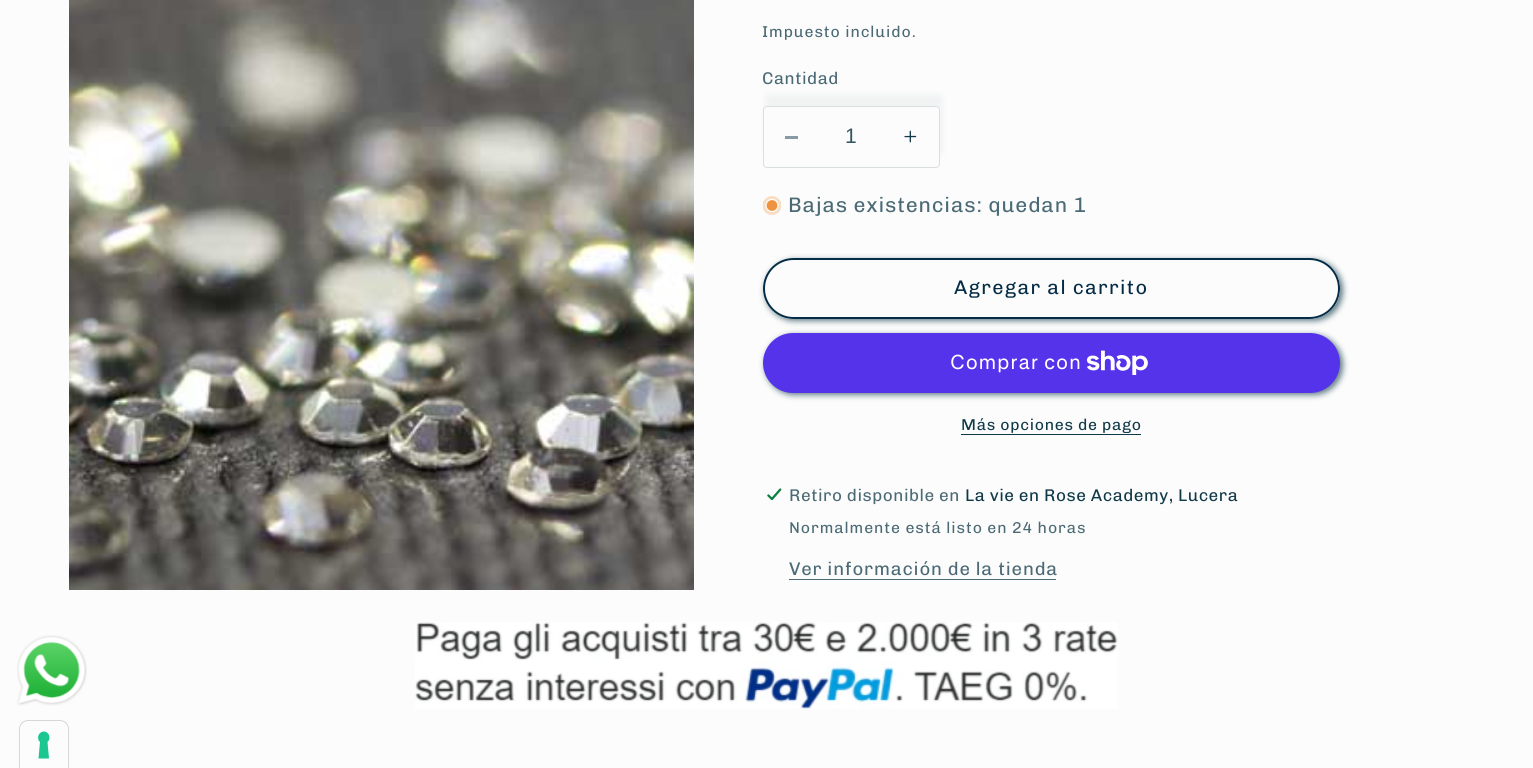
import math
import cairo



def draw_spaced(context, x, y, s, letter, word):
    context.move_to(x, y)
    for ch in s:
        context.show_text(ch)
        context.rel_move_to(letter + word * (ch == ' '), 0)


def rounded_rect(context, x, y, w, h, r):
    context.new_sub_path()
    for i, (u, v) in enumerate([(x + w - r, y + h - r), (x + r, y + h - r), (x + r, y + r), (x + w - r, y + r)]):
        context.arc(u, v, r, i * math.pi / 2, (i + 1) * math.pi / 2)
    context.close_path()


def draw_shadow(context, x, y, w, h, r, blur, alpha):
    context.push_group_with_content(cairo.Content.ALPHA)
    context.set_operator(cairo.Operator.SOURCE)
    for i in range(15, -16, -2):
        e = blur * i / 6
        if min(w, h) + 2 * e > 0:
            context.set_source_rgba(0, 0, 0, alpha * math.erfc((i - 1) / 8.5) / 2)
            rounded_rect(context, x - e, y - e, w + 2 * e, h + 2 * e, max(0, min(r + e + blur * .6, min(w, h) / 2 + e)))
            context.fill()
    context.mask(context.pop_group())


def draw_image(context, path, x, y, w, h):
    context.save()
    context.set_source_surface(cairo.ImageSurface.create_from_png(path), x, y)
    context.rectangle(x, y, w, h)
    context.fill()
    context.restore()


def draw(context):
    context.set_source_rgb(252 / 255, 252 / 255, 252 / 255)
    context.paint()
    draw_image(context, "images/1.png", 69, 0, 625, 590)
    context.set_source_rgb(16 / 255, 57 / 255, 72 / 255)
    draw_shadow(context, 765, 94, 178, 61, 4, 3, 0.05)
    context.set_source_rgb(252 / 255, 252 / 255, 252 / 255)
    rounded_rect(context, 763, 106, 177, 62, 4)
    context.fill()
    context.set_source_rgb(134 / 255, 155 / 255, 162 / 255)
    context.rectangle(785, 136, 13, 3)
    context.fill()
    draw_image(context, "images/2.png", 904, 130, 13, 13)
    rounded_rect(context, 763.5, 106.5, 176, 61, 3.5)
    context.set_source_rgb(217 / 255, 223 / 255, 225 / 255)
    context.set_line_width(1)
    context.stroke()
    context.save()
    context.rectangle(763, 196, 18, 19)
    context.clip()
    context.set_source_rgb(248 / 255, 221 / 255, 196 / 255)
    context.arc(772, 205.5, 9.5, 0, 2 * math.pi)
    context.fill()
    context.restore()
    context.set_source_rgb(238 / 255, 148 / 255, 65 / 255)
    context.arc(772, 205.5, 6, 0, 2 * math.pi)
    context.fill_preserve()
    context.set_source_rgb(1, 1, 1)
    context.set_line_width(1.2)
    context.stroke()
    context.set_source_rgb(16 / 255, 57 / 255, 72 / 255)
    draw_shadow(context, 765, 260, 578, 61, 30.5, 3, 0.65)
    context.set_source_rgb(252 / 255, 252 / 255, 252 / 255)
    rounded_rect(context, 763, 258, 577, 61, 30.5)
    context.fill()
    rounded_rect(context, 763.5, 258.5, 576, 60, 30)
    context.set_line_width(1)
    context.stroke()
    rounded_rect(context, 764, 259, 575, 59, 29.5)
    context.set_source_rgb(5 / 255, 44 / 255, 70 / 255)
    context.set_line_width(2)
    context.stroke()
    context.set_source_rgb(16 / 255, 57 / 255, 72 / 255)
    draw_shadow(context, 765, 335, 578, 60, 30, 3, 0.65)
    context.set_source_rgb(84 / 255, 51 / 255, 235 / 255)
    rounded_rect(context, 763, 333, 577, 60, 30)
    context.fill()
    draw_image(context, "images/3.png", 1086, 350, 62, 25)
    context.set_source_rgb(16 / 255, 57 / 255, 72 / 255)
    context.rectangle(961, 434, 180, 1)
    context.fill()
    draw_image(context, "images/4.png", 766, 487, 16, 14)
    context.set_source_rgb(75 / 255, 106 / 255, 117 / 255)
    context.rectangle(789, 579, 267, 1)
    context.fill()
    draw_image(context, "images/5.png", 415, 622, 703, 87)
    draw_image(context, "images/6.png", 17, 635, 70, 71)
    context.new_path()
    context.move_to(28, 720.5)
    context.line_to(60, 720.5)
    context.curve_to(64.5, 720.5, 68.5, 724.5, 68.5, 729)
    context.line_to(68.5, 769.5)
    context.line_to(19.5, 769.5)
    context.line_to(19.5, 729)
    context.curve_to(19.5, 724.5, 23.5, 720.5, 28, 720.5)
    context.close_path()
    context.set_source_rgb(214 / 255, 214 / 255, 214 / 255)
    context.set_line_width(1)
    context.stroke()
    context.set_source_rgb(28 / 255, 198 / 255, 145 / 255)
    context.set_fill_rule(cairo.FillRule.EVEN_ODD)
    context.new_path()
    context.move_to(44, 731.5)
    context.curve_to(49, 731.5, 51.5, 738.5, 47.5, 742)
    context.line_to(49, 758.5)
    context.line_to(38.5, 758.5)
    context.line_to(40, 742)
    context.curve_to(36, 738.5, 38.5, 731.5, 44, 731.5)
    context.close_path()
    context.fill()
    context.select_font_face("Chivo")
    context.set_font_size(15.75)
    context.set_source_rgb(75 / 255, 106 / 255, 117 / 255)
    draw_spaced(context, 762, 37, "Impuesto incluido.", 0.9, 0)
    context.set_font_size(17)
    draw_spaced(context, 762, 84, "Cantidad", 0.5, 0)
    context.select_font_face("Liberation Sans")
    context.set_font_size(21)
    context.set_source_rgb(51 / 255, 86 / 255, 99 / 255)
    context.move_to(845, 143)
    context.show_text("1")
    context.select_font_face("Chivo")
    context.set_source_rgb(75 / 255, 106 / 255, 117 / 255)
    draw_spaced(context, 788, 212, "Bajas existencias: quedan 1", 0.8, 0)
    context.set_font_size(19.75)
    context.set_source_rgb(5 / 255, 44 / 255, 70 / 255)
    draw_spaced(context, 954, 294, "Agregar al carrito", 1.3, 0)
    context.select_font_face("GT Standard")
    context.set_font_size(20)
    context.set_source_rgb(1, 1, 1)
    draw_spaced(context, 950, 369, "Comprar con", 0.8, 0)
    context.select_font_face("Chivo")
    context.set_font_size(15.75)
    context.set_source_rgb(16 / 255, 57 / 255, 72 / 255)
    draw_spaced(context, 961, 430, "Más opciones de pago", 0.7, 0)
    context.set_font_size(17)
    context.set_source_rgb(75 / 255, 106 / 255, 117 / 255)
    draw_spaced(context, 789, 501, "Retiro disponible en", 0.5, 0)
    context.set_source_rgb(16 / 255, 57 / 255, 72 / 255)
    draw_spaced(context, 965, 501, "La vie en Rose Academy, Lucera", 0.5, 0)
    context.set_font_size(15.75)
    context.set_source_rgb(75 / 255, 106 / 255, 117 / 255)
    draw_spaced(context, 789, 533, "Normalmente está listo en 24 horas", 0.9, 0)
    context.set_font_size(18.4)
    draw_spaced(context, 789, 575, "Ver información de la tienda", 0.8, 0)


surface = cairo.ImageSurface(cairo.Format.RGB24, 1533, 768)
context = cairo.Context(surface)
options = cairo.FontOptions()
options.set_hint_metrics(cairo.HintMetrics.OFF)
options.set_hint_style(cairo.HintStyle.NONE)
context.set_font_options(options)
context.set_miter_limit(4)
draw(context)
surface.write_to_png("out.png")
